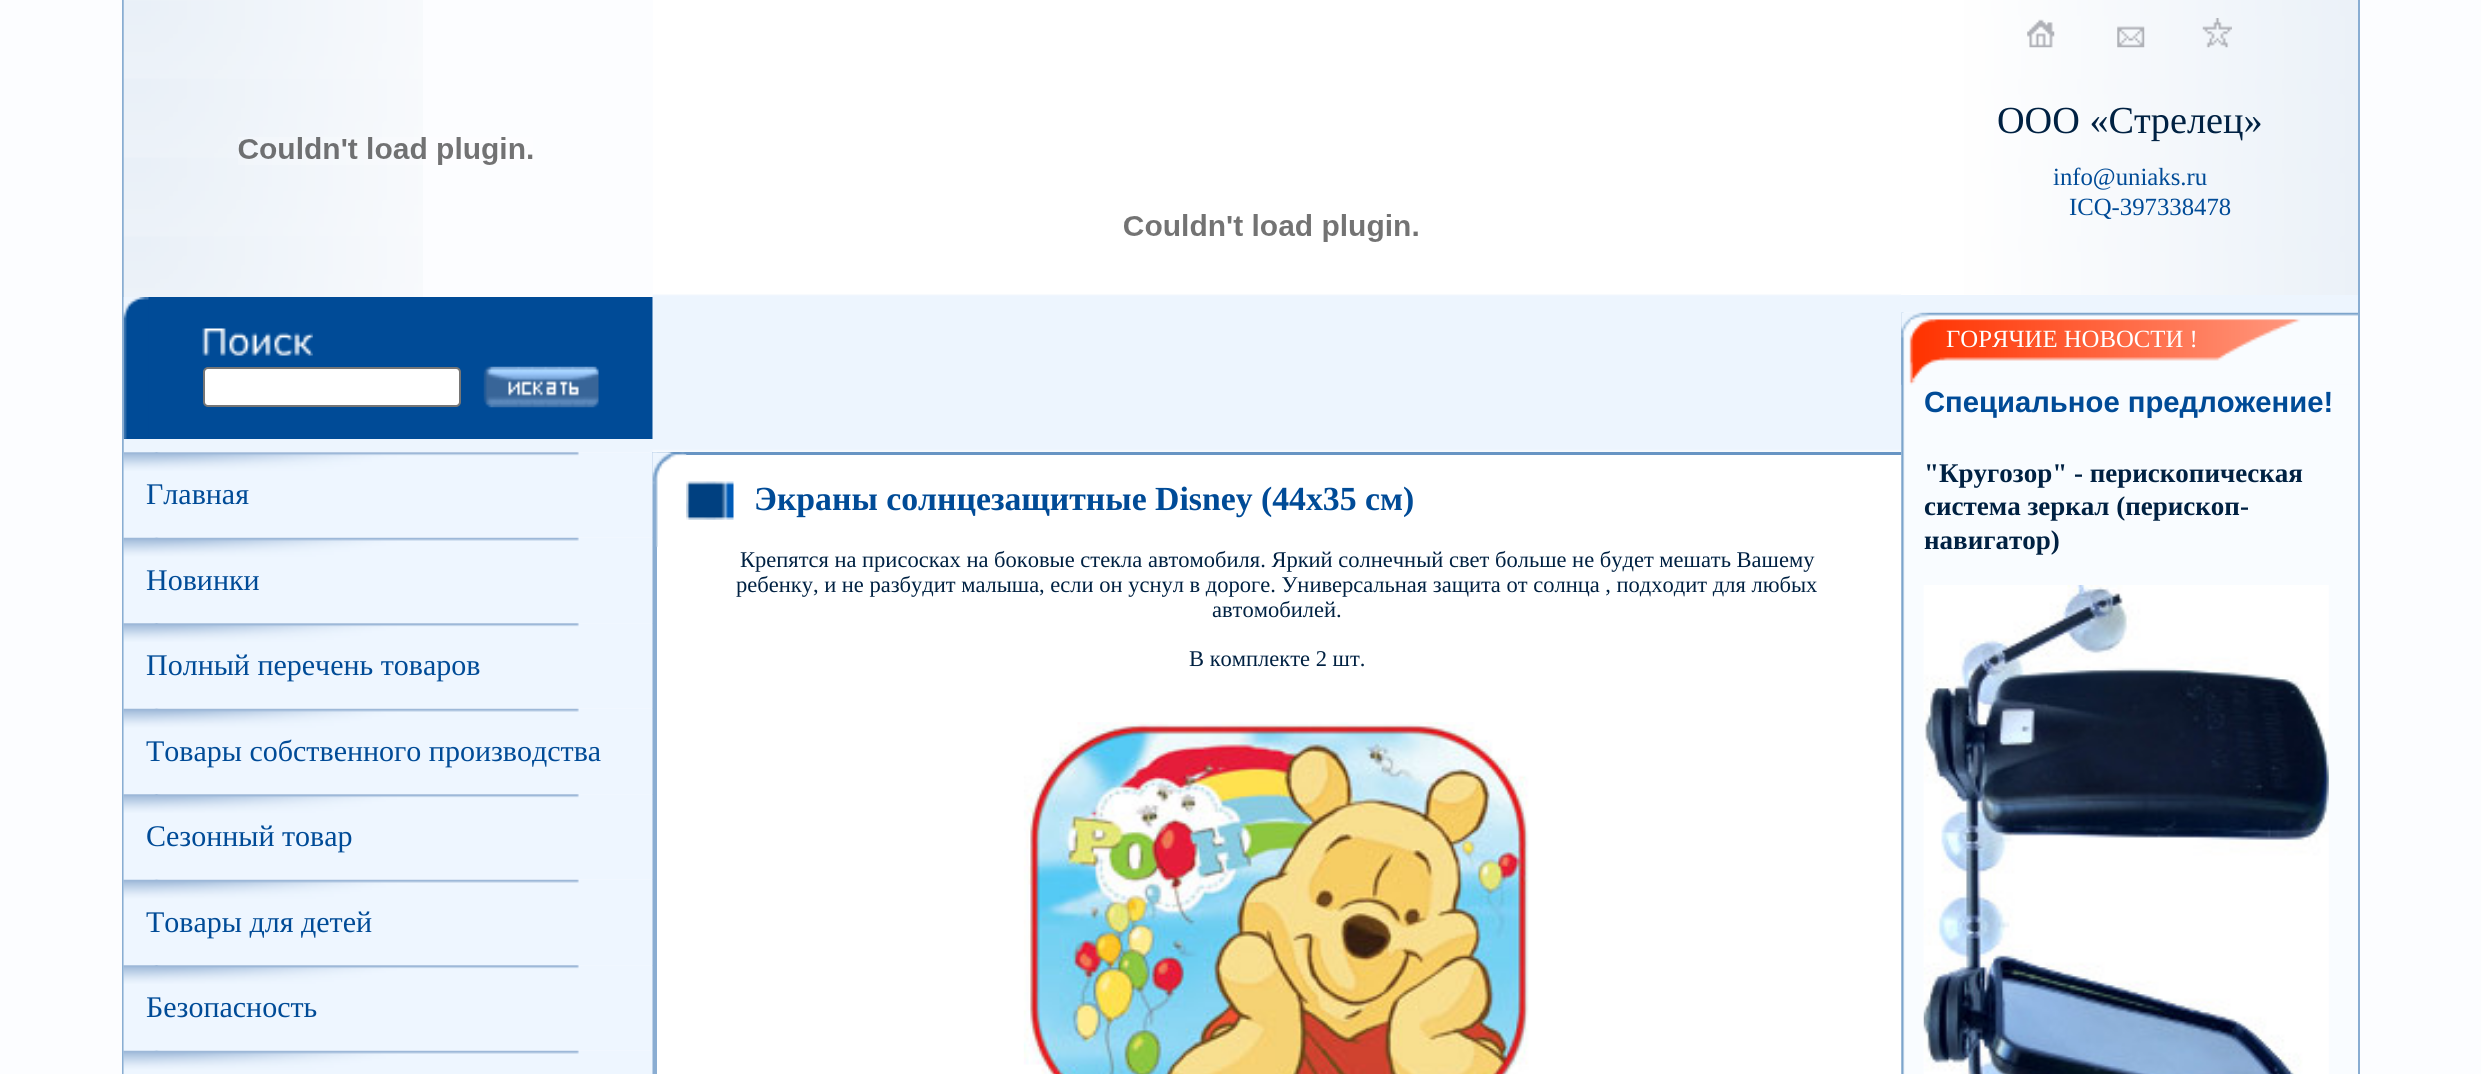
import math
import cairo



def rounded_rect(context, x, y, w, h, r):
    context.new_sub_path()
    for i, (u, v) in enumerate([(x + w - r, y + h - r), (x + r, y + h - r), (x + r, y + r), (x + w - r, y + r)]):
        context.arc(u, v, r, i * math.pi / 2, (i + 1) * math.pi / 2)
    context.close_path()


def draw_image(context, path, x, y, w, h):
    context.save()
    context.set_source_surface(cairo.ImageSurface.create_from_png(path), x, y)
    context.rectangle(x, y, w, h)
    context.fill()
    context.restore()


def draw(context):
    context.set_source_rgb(252 / 255, 253 / 255, 1)
    context.paint()
    context.set_source_rgb(137 / 255, 173 / 255, 210 / 255)
    context.rectangle(122, 0, 2, 1074)
    context.fill()
    context.set_source_rgb(104 / 255, 149 / 255, 196 / 255)
    context.rectangle(652, 452, 1250, 3)
    context.fill()
    draw_image(context, "images/1.png", 1901, 0, 457, 1074)
    draw_image(context, "images/2.png", 2027, 19, 28, 29)
    draw_image(context, "images/3.png", 2117, 26, 28, 22)
    draw_image(context, "images/4.png", 2202, 18, 30, 30)
    context.set_source_rgb(237 / 255, 245 / 255, 254 / 255)
    context.rectangle(1901, 295, 457, 18)
    context.fill()
    draw_image(context, "images/5.png", 1901, 312, 457, 762)
    draw_image(context, "images/6.png", 1901, 312, 457, 73)
    draw_image(context, "images/7.png", 1923, 585, 406, 489)
    context.set_source_rgb(137 / 255, 173 / 255, 210 / 255)
    context.rectangle(2358, 0, 2, 1074)
    context.fill()
    draw_image(context, "images/8.png", 123, 0, 300, 453)
    draw_image(context, "images/9.png", 238, 137, 295, 28)
    context.set_source_rgb(0, 75 / 255, 151 / 255)
    context.rectangle(124, 297, 529, 142)
    context.fill()
    draw_image(context, "images/10.png", 123, 297, 26, 142)
    draw_image(context, "images/11.png", 202, 328, 111, 28)
    context.set_source_rgb(1, 1, 1)
    rounded_rect(context, 204, 368, 256, 38, 4)
    context.fill_preserve()
    context.set_source_rgb(118 / 255, 118 / 255, 118 / 255)
    context.stroke()
    draw_image(context, "images/12.png", 483, 366, 116, 42)
    context.set_source_rgb(237 / 255, 245 / 255, 254 / 255)
    context.rectangle(124, 439, 529, 13)
    context.fill()
    context.set_source_rgb(1, 1, 1)
    context.rectangle(653, 0, 1248, 294)
    context.fill()
    draw_image(context, "images/13.png", 652, 294, 1249, 158)
    draw_image(context, "images/14.png", 1124, 214, 294, 28)
    draw_image(context, "images/15.png", 123, 452, 529, 622)
    context.set_source_rgb(138 / 255, 173 / 255, 210 / 255)
    context.rectangle(652, 452, 5, 622)
    context.fill()
    context.set_source_rgb(1, 1, 1)
    context.rectangle(657, 455, 1244, 619)
    context.fill()
    draw_image(context, "images/21.png", 652, 452, 35, 95)
    draw_image(context, "images/16.png", 123, 452, 530, 86)
    draw_image(context, "images/17.png", 123, 537, 530, 87)
    draw_image(context, "images/18.png", 123, 623, 530, 86)
    draw_image(context, "images/19.png", 123, 708, 530, 87)
    draw_image(context, "images/18.png", 123, 794, 530, 86)
    draw_image(context, "images/19.png", 123, 879, 530, 87)
    draw_image(context, "images/18.png", 123, 965, 530, 86)
    draw_image(context, "images/20.png", 123, 1050, 530, 24)
    draw_image(context, "images/22.png", 686, 481, 48, 39)
    draw_image(context, "images/23.png", 1023, 722, 506, 352)
    context.select_font_face("Liberation Serif")
    context.set_font_size(38.25)
    context.set_source_rgb(0, 33 / 255, 66 / 255)
    context.move_to(1997, 133)
    context.show_text("ООО «Стрелец»")
    context.set_font_size(24.75)
    context.set_source_rgb(0, 75 / 255, 151 / 255)
    context.move_to(2053, 185)
    context.show_text("info@uniaks.ru")
    context.move_to(2069, 215)
    context.show_text("ICQ-397338478")
    context.set_source_rgb(1, 1, 1)
    context.move_to(1946, 347)
    context.show_text("ГОРЯЧИЕ НОВОСТИ !")
    context.select_font_face("Liberation Sans", cairo.FontSlant.NORMAL, cairo.FontWeight.BOLD)
    context.set_font_size(29.25)
    context.set_source_rgb(0, 75 / 255, 151 / 255)
    context.move_to(1924, 412)
    context.show_text("Специальное предложение!")
    context.select_font_face("Liberation Serif", cairo.FontSlant.NORMAL, cairo.FontWeight.BOLD)
    context.set_font_size(27)
    context.set_source_rgb(0, 33 / 255, 66 / 255)
    context.move_to(1924, 482)
    context.show_text("\"Кругозор\" - перископическая")
    context.move_to(1924, 515)
    context.show_text("система зеркал (перископ-")
    context.move_to(1924, 549)
    context.show_text("навигатор)")
    context.select_font_face("Liberation Serif")
    context.set_font_size(30)
    context.set_source_rgb(0, 75 / 255, 151 / 255)
    context.move_to(146, 504)
    context.show_text("Главная")
    context.move_to(146, 590)
    context.show_text("Новинки")
    context.move_to(146, 675)
    context.show_text("Полный перечень товаров")
    context.move_to(146, 761)
    context.show_text("Товары собственного производства")
    context.move_to(146, 846)
    context.show_text("Сезонный товар")
    context.move_to(146, 932)
    context.show_text("Товары для детей")
    context.move_to(146, 1017)
    context.show_text("Безопасность")
    context.select_font_face("Liberation Serif", cairo.FontSlant.NORMAL, cairo.FontWeight.BOLD)
    context.set_font_size(33.75)
    context.move_to(754, 510)
    context.show_text("Экраны солнцезащитные Disney (44х35 см)")
    context.select_font_face("Liberation Serif")
    context.set_font_size(22.5)
    context.set_source_rgb(0, 33 / 255, 66 / 255)
    context.move_to(740, 567)
    context.show_text("Крепятся на присосках на боковые стекла автомобиля. Яркий солнечный свет больше не будет мешать Вашему")
    context.move_to(736, 592)
    context.show_text("ребенку, и не разбудит малыша, если он уснул в дороге. Универсальная защита от солнца , подходит для любых")
    context.move_to(1212, 617)
    context.show_text("автомобилей.")
    context.move_to(1189, 666)
    context.show_text("В комплекте 2 шт.")


surface = cairo.ImageSurface(cairo.Format.RGB24, 2481, 1074)
context = cairo.Context(surface)
options = cairo.FontOptions()
options.set_hint_metrics(cairo.HintMetrics.OFF)
options.set_hint_style(cairo.HintStyle.NONE)
context.set_font_options(options)
context.set_miter_limit(4)
draw(context)
surface.write_to_png("out.png")
